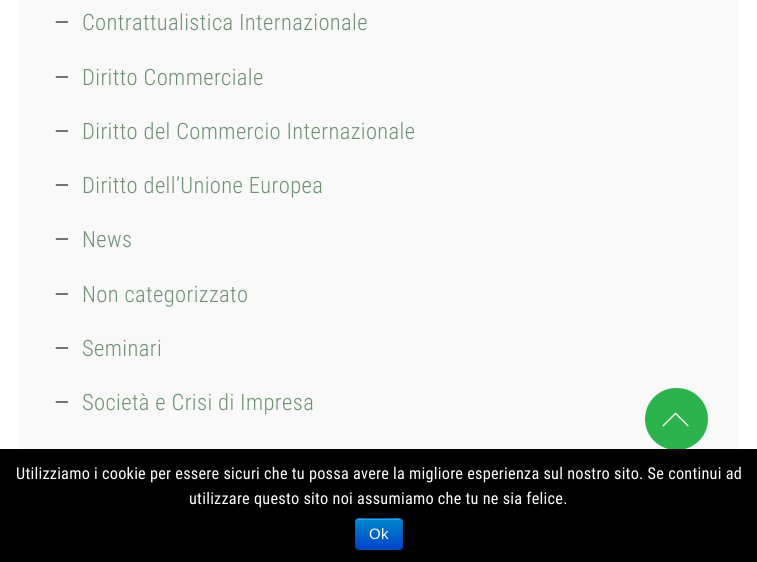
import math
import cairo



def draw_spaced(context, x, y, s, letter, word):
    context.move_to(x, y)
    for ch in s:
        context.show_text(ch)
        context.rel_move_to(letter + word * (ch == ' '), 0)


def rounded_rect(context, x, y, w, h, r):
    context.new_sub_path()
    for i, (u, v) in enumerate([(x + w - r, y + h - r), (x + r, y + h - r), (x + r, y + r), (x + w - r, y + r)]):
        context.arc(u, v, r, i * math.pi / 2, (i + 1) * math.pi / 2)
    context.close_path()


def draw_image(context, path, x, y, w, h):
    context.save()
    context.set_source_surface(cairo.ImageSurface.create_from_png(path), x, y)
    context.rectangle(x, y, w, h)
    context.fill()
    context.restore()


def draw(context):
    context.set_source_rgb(1, 1, 1)
    context.paint()
    context.set_source_rgb(249 / 255, 249 / 255, 249 / 255)
    context.rectangle(19, 0, 720, 449)
    context.fill()
    context.set_source_rgb(44 / 255, 179 / 255, 77 / 255)
    rounded_rect(context, 645, 388, 63, 62, 31)
    context.fill()
    draw_image(context, "images/1.png", 662, 412, 27, 15)
    context.set_source_rgb(0, 0, 0)
    context.rectangle(0, 449, 757, 113)
    context.fill()
    context.set_source_rgb(0, 109 / 255, 204 / 255)
    rounded_rect(context, 355, 518, 48, 32, 4)
    context.fill()
    context.save()
    rounded_rect(context, 355, 518, 48, 32, 4)
    context.clip()
    gradient = cairo.LinearGradient(379, 519, 379, 549)
    gradient.add_color_stop_rgba(0, 0, 136 / 255, 204 / 255, 1)
    gradient.add_color_stop_rgba(1, 0, 68 / 255, 204 / 255, 1)
    context.set_source(gradient)
    context.rectangle(355, 519, 48, 30)
    context.fill()
    context.restore()
    context.set_source_rgb(51 / 255, 159 / 255, 214 / 255)
    context.new_path()
    context.move_to(359, 520)
    context.line_to(399, 520)
    context.curve_to(400, 520, 401, 521, 401, 522)
    context.curve_to(401, 517, 395, 519, 392, 519)
    context.line_to(365, 519)
    context.curve_to(362, 519, 356, 517, 356, 522)
    context.curve_to(356, 521, 357, 520, 359, 520)
    context.close_path()
    context.fill()
    context.new_path()
    context.move_to(401, 548.5)
    context.line_to(399, 549.5)
    context.line_to(359, 549.5)
    context.line_to(356.5, 548.5)
    context.set_source_rgba(0, 0, 0, 0.25)
    context.set_line_width(1.2)
    context.stroke()
    context.new_path()
    context.move_to(356.5, 548.5)
    context.curve_to(354.5, 546.5, 355.5, 536.5, 355.5, 534)
    context.curve_to(355.5, 519, 352, 518, 365.5, 518)
    context.line_to(392, 518)
    context.curve_to(405.5, 518, 402, 519, 402, 534)
    context.curve_to(402, 536.5, 403, 546.5, 401, 548.5)
    context.set_source_rgba(0, 0, 0, 0.1)
    context.stroke()
    context.select_font_face("Roboto Condensed")
    context.set_font_size(22.5)
    context.set_source_rgb(91 / 255, 91 / 255, 92 / 255)
    draw_spaced(context, 54, 30, "—", 0.25, 0)
    context.select_font_face("Roboto Condensed Light")
    context.set_source_rgb(109 / 255, 144 / 255, 113 / 255)
    draw_spaced(context, 82, 30, "Contrattualistica Internazionale", 0.4, 0)
    context.select_font_face("Roboto Condensed")
    context.set_source_rgb(91 / 255, 91 / 255, 92 / 255)
    draw_spaced(context, 54, 85, "—", 0.25, 0)
    context.select_font_face("Roboto Condensed Light")
    context.set_source_rgb(109 / 255, 144 / 255, 113 / 255)
    draw_spaced(context, 82, 85, "Diritto Commerciale", 0.4, 0)
    context.select_font_face("Roboto Condensed")
    context.set_source_rgb(91 / 255, 91 / 255, 92 / 255)
    draw_spaced(context, 54, 139, "—", 0.25, 0)
    context.select_font_face("Roboto Condensed Light")
    context.set_source_rgb(109 / 255, 144 / 255, 113 / 255)
    draw_spaced(context, 82, 139, "Diritto del Commercio Internazionale", 0.4, 0)
    context.select_font_face("Roboto Condensed")
    context.set_source_rgb(91 / 255, 91 / 255, 92 / 255)
    draw_spaced(context, 54, 193, "—", 0.25, 0)
    context.select_font_face("Roboto Condensed Light")
    context.set_source_rgb(109 / 255, 144 / 255, 113 / 255)
    draw_spaced(context, 82, 193, "Diritto dell’Unione Europea", 0.4, 0)
    context.select_font_face("Roboto Condensed")
    context.set_source_rgb(91 / 255, 91 / 255, 92 / 255)
    draw_spaced(context, 54, 247, "—", 0.25, 0)
    context.select_font_face("Roboto Condensed Light")
    context.set_source_rgb(109 / 255, 144 / 255, 113 / 255)
    draw_spaced(context, 82, 247, "News", 0.4, 0)
    context.select_font_face("Roboto Condensed")
    context.set_source_rgb(91 / 255, 91 / 255, 92 / 255)
    draw_spaced(context, 54, 302, "—", 0.25, 0)
    context.select_font_face("Roboto Condensed Light")
    context.set_source_rgb(109 / 255, 144 / 255, 113 / 255)
    draw_spaced(context, 82, 302, "Non categorizzato", 0.4, 0)
    context.select_font_face("Roboto Condensed")
    context.set_source_rgb(91 / 255, 91 / 255, 92 / 255)
    draw_spaced(context, 54, 356, "—", 0.25, 0)
    context.select_font_face("Roboto Condensed Light")
    context.set_source_rgb(109 / 255, 144 / 255, 113 / 255)
    draw_spaced(context, 82, 356, "Seminari", 0.4, 0)
    context.select_font_face("Roboto Condensed")
    context.set_source_rgb(91 / 255, 91 / 255, 92 / 255)
    draw_spaced(context, 54, 410, "—", 0.25, 0)
    context.select_font_face("Roboto Condensed Light")
    context.set_source_rgb(109 / 255, 144 / 255, 113 / 255)
    draw_spaced(context, 82, 410, "Società e Crisi di Impresa", 0.4, 0)
    context.select_font_face("Roboto Condensed")
    context.set_font_size(16.25)
    context.set_source_rgb(1, 1, 1)
    draw_spaced(context, 16, 479, "Utilizziamo i cookie per essere sicuri che tu possa avere la migliore esperienza sul nostro sito. Se continui ad", 0.25, 0)
    draw_spaced(context, 189, 504, "utilizzare questo sito noi assumiamo che tu ne sia felice.", 0.25, 0)
    context.select_font_face("Liberation Sans")
    context.set_font_size(15)
    draw_spaced(context, 369, 539, "Ok", 0.25, 0)


surface = cairo.ImageSurface(cairo.Format.RGB24, 757, 562)
context = cairo.Context(surface)
options = cairo.FontOptions()
options.set_hint_metrics(cairo.HintMetrics.OFF)
options.set_hint_style(cairo.HintStyle.NONE)
context.set_font_options(options)
context.set_miter_limit(4)
draw(context)
surface.write_to_png("out.png")
